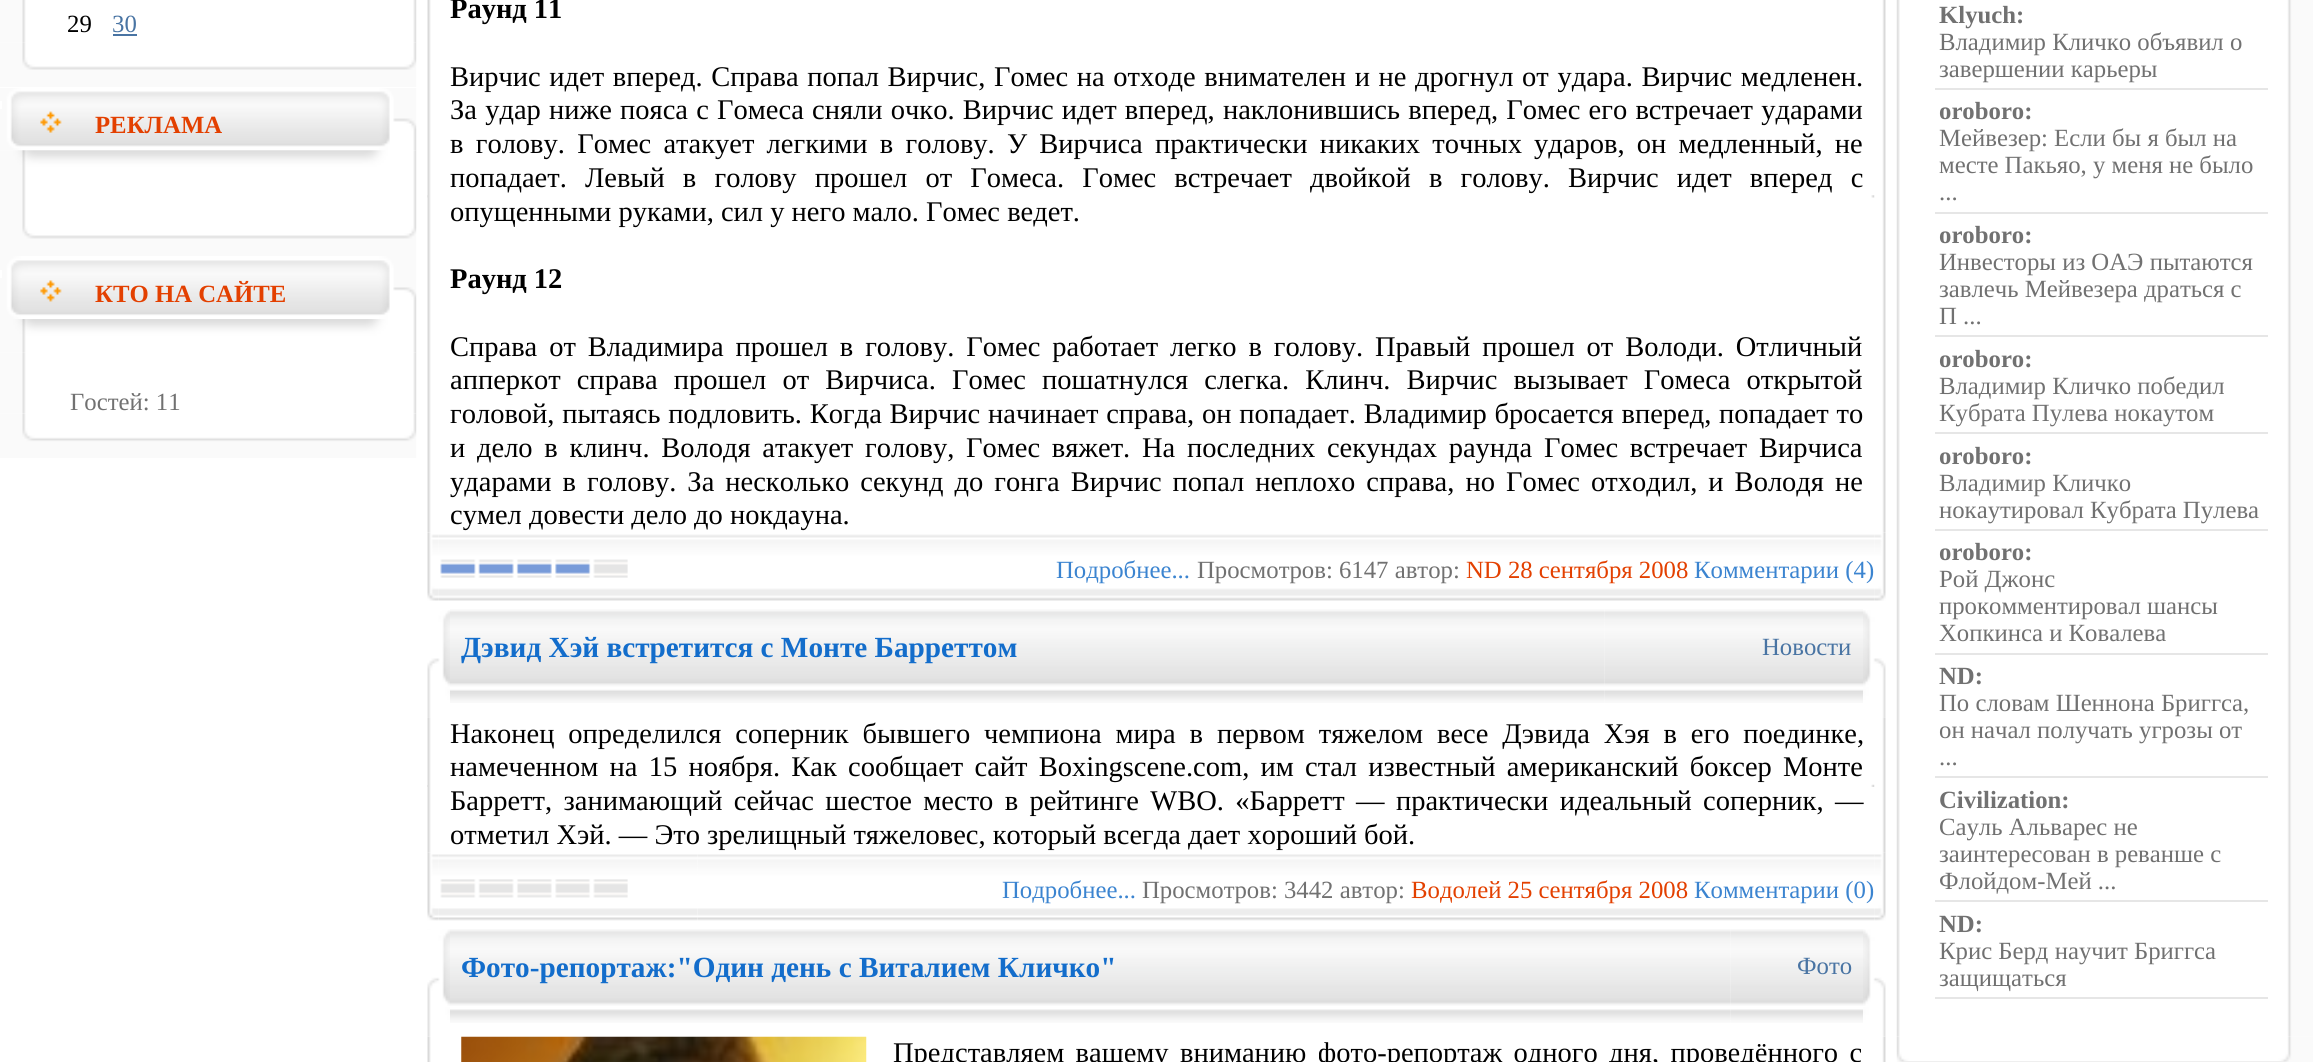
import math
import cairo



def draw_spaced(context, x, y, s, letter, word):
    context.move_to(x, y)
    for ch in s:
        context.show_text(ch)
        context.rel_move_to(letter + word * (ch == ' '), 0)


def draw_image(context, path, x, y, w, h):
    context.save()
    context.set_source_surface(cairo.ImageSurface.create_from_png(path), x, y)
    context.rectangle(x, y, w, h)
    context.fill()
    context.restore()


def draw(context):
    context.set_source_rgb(1, 1, 1)
    context.paint()
    draw_image(context, "images/1.png", 0, 0, 417, 43)
    context.set_source_rgb(73 / 255, 116 / 255, 163 / 255)
    context.rectangle(113, 34, 24, 2)
    context.fill()
    draw_image(context, "images/2.png", 0, 42, 417, 45)
    draw_image(context, "images/3.png", 0, 88, 417, 63)
    context.set_source_rgb(1, 1, 1)
    context.rectangle(0, 101, 2, 8)
    context.fill()
    draw_image(context, "images/4.png", 0, 150, 417, 34)
    draw_image(context, "images/5.png", 0, 184, 417, 27)
    draw_image(context, "images/6.png", 0, 211, 417, 45)
    draw_image(context, "images/7.png", 0, 256, 417, 63)
    context.rectangle(0, 270, 2, 8)
    context.fill()
    draw_image(context, "images/9.png", 0, 352, 417, 62)
    draw_image(context, "images/8.png", 0, 319, 417, 34)
    draw_image(context, "images/10.png", 0, 413, 417, 45)
    draw_image(context, "images/11.png", 427, 0, 4, 533)
    draw_image(context, "images/12.png", 427, 195, 1, 3)
    draw_image(context, "images/13.png", 1882, 0, 4, 533)
    draw_image(context, "images/14.png", 1871, 195, 4, 3)
    draw_image(context, "images/16.png", 438, 534, 273, 67)
    draw_image(context, "images/15.png", 427, 533, 12, 68)
    draw_image(context, "images/17.png", 440, 559, 188, 19)
    draw_image(context, "images/18.png", 440, 563, 151, 11)
    draw_image(context, "images/19.png", 711, 534, 1164, 67)
    draw_image(context, "images/20.png", 1874, 533, 12, 68)
    draw_image(context, "images/21.png", 427, 610, 23, 107)
    draw_image(context, "images/22.png", 450, 609, 1155, 94)
    draw_image(context, "images/23.png", 1604, 609, 259, 94)
    draw_image(context, "images/24.png", 1863, 610, 23, 107)
    draw_image(context, "images/25.png", 427, 717, 4, 136)
    context.set_source_rgb(226 / 255, 226 / 255, 226 / 255)
    context.rectangle(427, 785, 1, 2)
    context.fill()
    draw_image(context, "images/26.png", 1882, 717, 4, 136)
    draw_image(context, "images/27.png", 1871, 784, 4, 3)
    draw_image(context, "images/29.png", 438, 854, 260, 67)
    draw_image(context, "images/28.png", 427, 852, 12, 69)
    draw_image(context, "images/30.png", 440, 879, 188, 19)
    draw_image(context, "images/31.png", 697, 854, 1178, 67)
    draw_image(context, "images/32.png", 1874, 852, 12, 69)
    draw_image(context, "images/37.png", 427, 1036, 4, 26)
    draw_image(context, "images/33.png", 427, 929, 23, 108)
    draw_image(context, "images/34.png", 450, 929, 1281, 94)
    draw_image(context, "images/35.png", 1730, 929, 133, 94)
    draw_image(context, "images/39.png", 1882, 1036, 4, 26)
    draw_image(context, "images/36.png", 1863, 929, 23, 108)
    draw_image(context, "images/38.png", 461, 1036, 406, 26)
    draw_image(context, "images/40.png", 1896, 0, 417, 1037)
    context.set_source_rgb(230 / 255, 230 / 255, 230 / 255)
    context.rectangle(1935, 88, 333, 2)
    context.fill()
    context.rectangle(1935, 212, 333, 2)
    context.fill()
    context.rectangle(1935, 335, 333, 2)
    context.fill()
    context.rectangle(1935, 432, 333, 2)
    context.fill()
    context.rectangle(1935, 529, 333, 2)
    context.fill()
    context.rectangle(1935, 653, 333, 2)
    context.fill()
    context.rectangle(1935, 776, 333, 2)
    context.fill()
    context.rectangle(1935, 900, 333, 2)
    context.fill()
    context.rectangle(1935, 997, 333, 2)
    context.fill()
    draw_image(context, "images/41.png", 1896, 1037, 417, 25)
    context.select_font_face("Liberation Serif")
    context.set_font_size(24.75)
    context.set_source_rgb(0, 0, 0)
    context.move_to(67, 32)
    context.show_text("29")
    context.set_source_rgb(73 / 255, 116 / 255, 163 / 255)
    context.move_to(112, 32)
    context.show_text("30")
    context.select_font_face("Liberation Serif", cairo.FontSlant.NORMAL, cairo.FontWeight.BOLD)
    context.set_source_rgb(227 / 255, 64 / 255, 0)
    context.move_to(95, 133)
    context.show_text("РЕКЛАМА")
    context.move_to(95, 302)
    context.show_text("КТО НА САЙТЕ")
    context.select_font_face("Liberation Serif")
    context.set_source_rgb(113 / 255, 113 / 255, 113 / 255)
    context.move_to(70, 410)
    context.show_text("Гостей: 11")
    context.select_font_face("Liberation Serif", cairo.FontSlant.NORMAL, cairo.FontWeight.BOLD)
    context.set_font_size(28.5)
    context.set_source_rgb(0, 0, 0)
    context.move_to(450, 18)
    context.show_text("Раунд 11")
    context.select_font_face("Liberation Serif")
    draw_spaced(context, 450, 86, "Вирчис идет вперед. Справа попал Вирчис, Гомес на отходе внимателен и не дрогнул от удара. Вирчис медленен.", 0, 1.5)
    draw_spaced(context, 450, 119, "За удар ниже пояса с Гомеса сняли очко. Вирчис идет вперед, наклонившись вперед, Гомес его встречает ударами", 0, 1.1)
    draw_spaced(context, 450, 153, "в голову. Гомес атакует легкими в голову. У Вирчиса практически никаких точных ударов, он медленный, не", 0, 5.1)
    draw_spaced(context, 450, 187, "попадает. Левый в голову прошел от Гомеса. Гомес встречает двойкой в голову. Вирчис идет вперед с", 0, 11)
    context.move_to(450, 221)
    context.show_text("опущенными руками, сил у него мало. Гомес ведет.")
    context.select_font_face("Liberation Serif", cairo.FontSlant.NORMAL, cairo.FontWeight.BOLD)
    context.move_to(450, 288)
    context.show_text("Раунд 12")
    context.select_font_face("Liberation Serif")
    draw_spaced(context, 450, 356, "Справа от Владимира прошел в голову. Гомес работает легко в голову. Правый прошел от Володи. Отличный", 0, 4.75)
    draw_spaced(context, 450, 389, "апперкот справа прошел от Вирчиса. Гомес пошатнулся слегка. Клинч. Вирчис вызывает Гомеса открытой", 0, 9)
    draw_spaced(context, 450, 423, "головой, пытаясь подловить. Когда Вирчис начинает справа, он попадает. Владимир бросается вперед, попадает то", 0, 0.6)
    draw_spaced(context, 450, 457, "и дело в клинч. Володя атакует голову, Гомес вяжет. На последних секундах раунда Гомес встречает Вирчиса", 0, 4.6)
    draw_spaced(context, 450, 491, "ударами в голову. За несколько секунд до гонга Вирчис попал неплохо справа, но Гомес отходил, и Володя не", 0, 3.9)
    context.move_to(450, 524)
    context.show_text("сумел довести дело до нокдауна.")
    context.set_font_size(24.75)
    context.set_source_rgb(59 / 255, 132 / 255, 208 / 255)
    context.move_to(1056, 578)
    context.show_text("Подробнее...")
    context.set_source_rgb(113 / 255, 113 / 255, 113 / 255)
    context.move_to(1197, 578)
    context.show_text("Просмотров: 6147 автор:")
    context.set_source_rgb(227 / 255, 64 / 255, 0)
    context.move_to(1466, 578)
    context.show_text("ND 28 сентября 2008")
    context.set_source_rgb(59 / 255, 132 / 255, 208 / 255)
    context.move_to(1694, 578)
    context.show_text("Комментарии (4)")
    context.select_font_face("Liberation Serif", cairo.FontSlant.NORMAL, cairo.FontWeight.BOLD)
    context.set_font_size(29.25)
    context.set_source_rgb(19 / 255, 109 / 255, 203 / 255)
    context.move_to(461, 657)
    context.show_text("Дэвид Хэй встретится с Монте Барреттом")
    context.select_font_face("Liberation Serif")
    context.set_font_size(24.75)
    context.set_source_rgb(73 / 255, 116 / 255, 163 / 255)
    context.move_to(1762, 655)
    context.show_text("Новости")
    context.set_font_size(28.5)
    context.set_source_rgb(0, 0, 0)
    draw_spaced(context, 450, 743, "Наконец определился соперник бывшего чемпиона мира в первом тяжелом весе Дэвида Хэя в его поединке,", 0, 6.75)
    draw_spaced(context, 450, 776, "намеченном на 15 ноября. Как сообщает сайт Boxingscene.com, им стал известный американский боксер Монте", 0, 4.1)
    draw_spaced(context, 450, 810, "Барретт, занимающий сейчас шестое место в рейтинге WBO. «Барретт — практически идеальный соперник, —", 0, 4.25)
    context.move_to(450, 844)
    context.show_text("отметил Хэй. — Это зрелищный тяжеловес, который всегда дает хороший бой.")
    context.set_font_size(24.75)
    context.set_source_rgb(59 / 255, 132 / 255, 208 / 255)
    context.move_to(1002, 898)
    context.show_text("Подробнее...")
    context.set_source_rgb(113 / 255, 113 / 255, 113 / 255)
    context.move_to(1142, 898)
    context.show_text("Просмотров: 3442 автор:")
    context.set_source_rgb(227 / 255, 64 / 255, 0)
    context.move_to(1411, 898)
    context.show_text("Водолей 25 сентября 2008")
    context.set_source_rgb(59 / 255, 132 / 255, 208 / 255)
    context.move_to(1694, 898)
    context.show_text("Комментарии (0)")
    context.select_font_face("Liberation Serif", cairo.FontSlant.NORMAL, cairo.FontWeight.BOLD)
    context.set_font_size(29.25)
    context.set_source_rgb(19 / 255, 109 / 255, 203 / 255)
    context.move_to(461, 977)
    context.show_text("Фото-репортаж:\"Один день с Виталием Кличко\"")
    context.select_font_face("Liberation Serif")
    context.set_font_size(24.75)
    context.set_source_rgb(73 / 255, 116 / 255, 163 / 255)
    context.move_to(1797, 974)
    context.show_text("Фото")
    context.set_font_size(28.5)
    context.set_source_rgb(0, 0, 0)
    draw_spaced(context, 893, 1062, "Представляем вашему вниманию фото-репортаж одного дня, проведённого с", 0, 4.25)
    context.select_font_face("Liberation Serif", cairo.FontSlant.NORMAL, cairo.FontWeight.BOLD)
    context.set_font_size(24.75)
    context.set_source_rgb(113 / 255, 113 / 255, 113 / 255)
    context.move_to(1939, 23)
    context.show_text("Klyuch:")
    context.select_font_face("Liberation Serif")
    context.move_to(1939, 50)
    context.show_text("Владимир Кличко объявил о")
    context.move_to(1939, 77)
    context.show_text("завершении карьеры")
    context.select_font_face("Liberation Serif", cairo.FontSlant.NORMAL, cairo.FontWeight.BOLD)
    context.move_to(1939, 119)
    context.show_text("oroboro:")
    context.select_font_face("Liberation Serif")
    context.move_to(1939, 146)
    context.show_text("Мейвезер: Если бы я был на")
    context.move_to(1939, 173)
    context.show_text("месте Пакьяо, у меня не было")
    context.move_to(1939, 200)
    context.show_text("...")
    context.select_font_face("Liberation Serif", cairo.FontSlant.NORMAL, cairo.FontWeight.BOLD)
    context.move_to(1939, 243)
    context.show_text("oroboro:")
    context.select_font_face("Liberation Serif")
    context.move_to(1939, 270)
    context.show_text("Инвесторы из ОАЭ пытаются")
    context.move_to(1939, 297)
    context.show_text("завлечь Мейвезера драться с")
    context.move_to(1939, 324)
    context.show_text("П ...")
    context.select_font_face("Liberation Serif", cairo.FontSlant.NORMAL, cairo.FontWeight.BOLD)
    context.move_to(1939, 367)
    context.show_text("oroboro:")
    context.select_font_face("Liberation Serif")
    context.move_to(1939, 394)
    context.show_text("Владимир Кличко победил")
    context.move_to(1939, 421)
    context.show_text("Кубрата Пулева нокаутом")
    context.select_font_face("Liberation Serif", cairo.FontSlant.NORMAL, cairo.FontWeight.BOLD)
    context.move_to(1939, 464)
    context.show_text("oroboro:")
    context.select_font_face("Liberation Serif")
    context.move_to(1939, 491)
    context.show_text("Владимир Кличко")
    context.move_to(1939, 518)
    context.show_text("нокаутировал Кубрата Пулева")
    context.select_font_face("Liberation Serif", cairo.FontSlant.NORMAL, cairo.FontWeight.BOLD)
    context.move_to(1939, 560)
    context.show_text("oroboro:")
    context.select_font_face("Liberation Serif")
    context.move_to(1939, 587)
    context.show_text("Рой Джонс")
    context.move_to(1939, 614)
    context.show_text("прокомментировал шансы")
    context.move_to(1939, 641)
    context.show_text("Хопкинса и Ковалева")
    context.select_font_face("Liberation Serif", cairo.FontSlant.NORMAL, cairo.FontWeight.BOLD)
    context.move_to(1939, 684)
    context.show_text("ND:")
    context.select_font_face("Liberation Serif")
    context.move_to(1939, 711)
    context.show_text("По словам Шеннона Бриггса,")
    context.move_to(1939, 738)
    context.show_text("он начал получать угрозы от")
    context.move_to(1939, 765)
    context.show_text("...")
    context.select_font_face("Liberation Serif", cairo.FontSlant.NORMAL, cairo.FontWeight.BOLD)
    context.move_to(1939, 808)
    context.show_text("Civilization:")
    context.select_font_face("Liberation Serif")
    context.move_to(1939, 835)
    context.show_text("Сауль Альварес не")
    context.move_to(1939, 862)
    context.show_text("заинтересован в реванше с")
    context.move_to(1939, 889)
    context.show_text("Флойдом-Мей ...")
    context.select_font_face("Liberation Serif", cairo.FontSlant.NORMAL, cairo.FontWeight.BOLD)
    context.move_to(1939, 932)
    context.show_text("ND:")
    context.select_font_face("Liberation Serif")
    context.move_to(1939, 959)
    context.show_text("Крис Берд научит Бриггса")
    context.move_to(1939, 986)
    context.show_text("защищаться")


surface = cairo.ImageSurface(cairo.Format.RGB24, 2314, 1062)
context = cairo.Context(surface)
options = cairo.FontOptions()
options.set_hint_metrics(cairo.HintMetrics.OFF)
options.set_hint_style(cairo.HintStyle.NONE)
context.set_font_options(options)
context.set_miter_limit(4)
draw(context)
surface.write_to_png("out.png")
